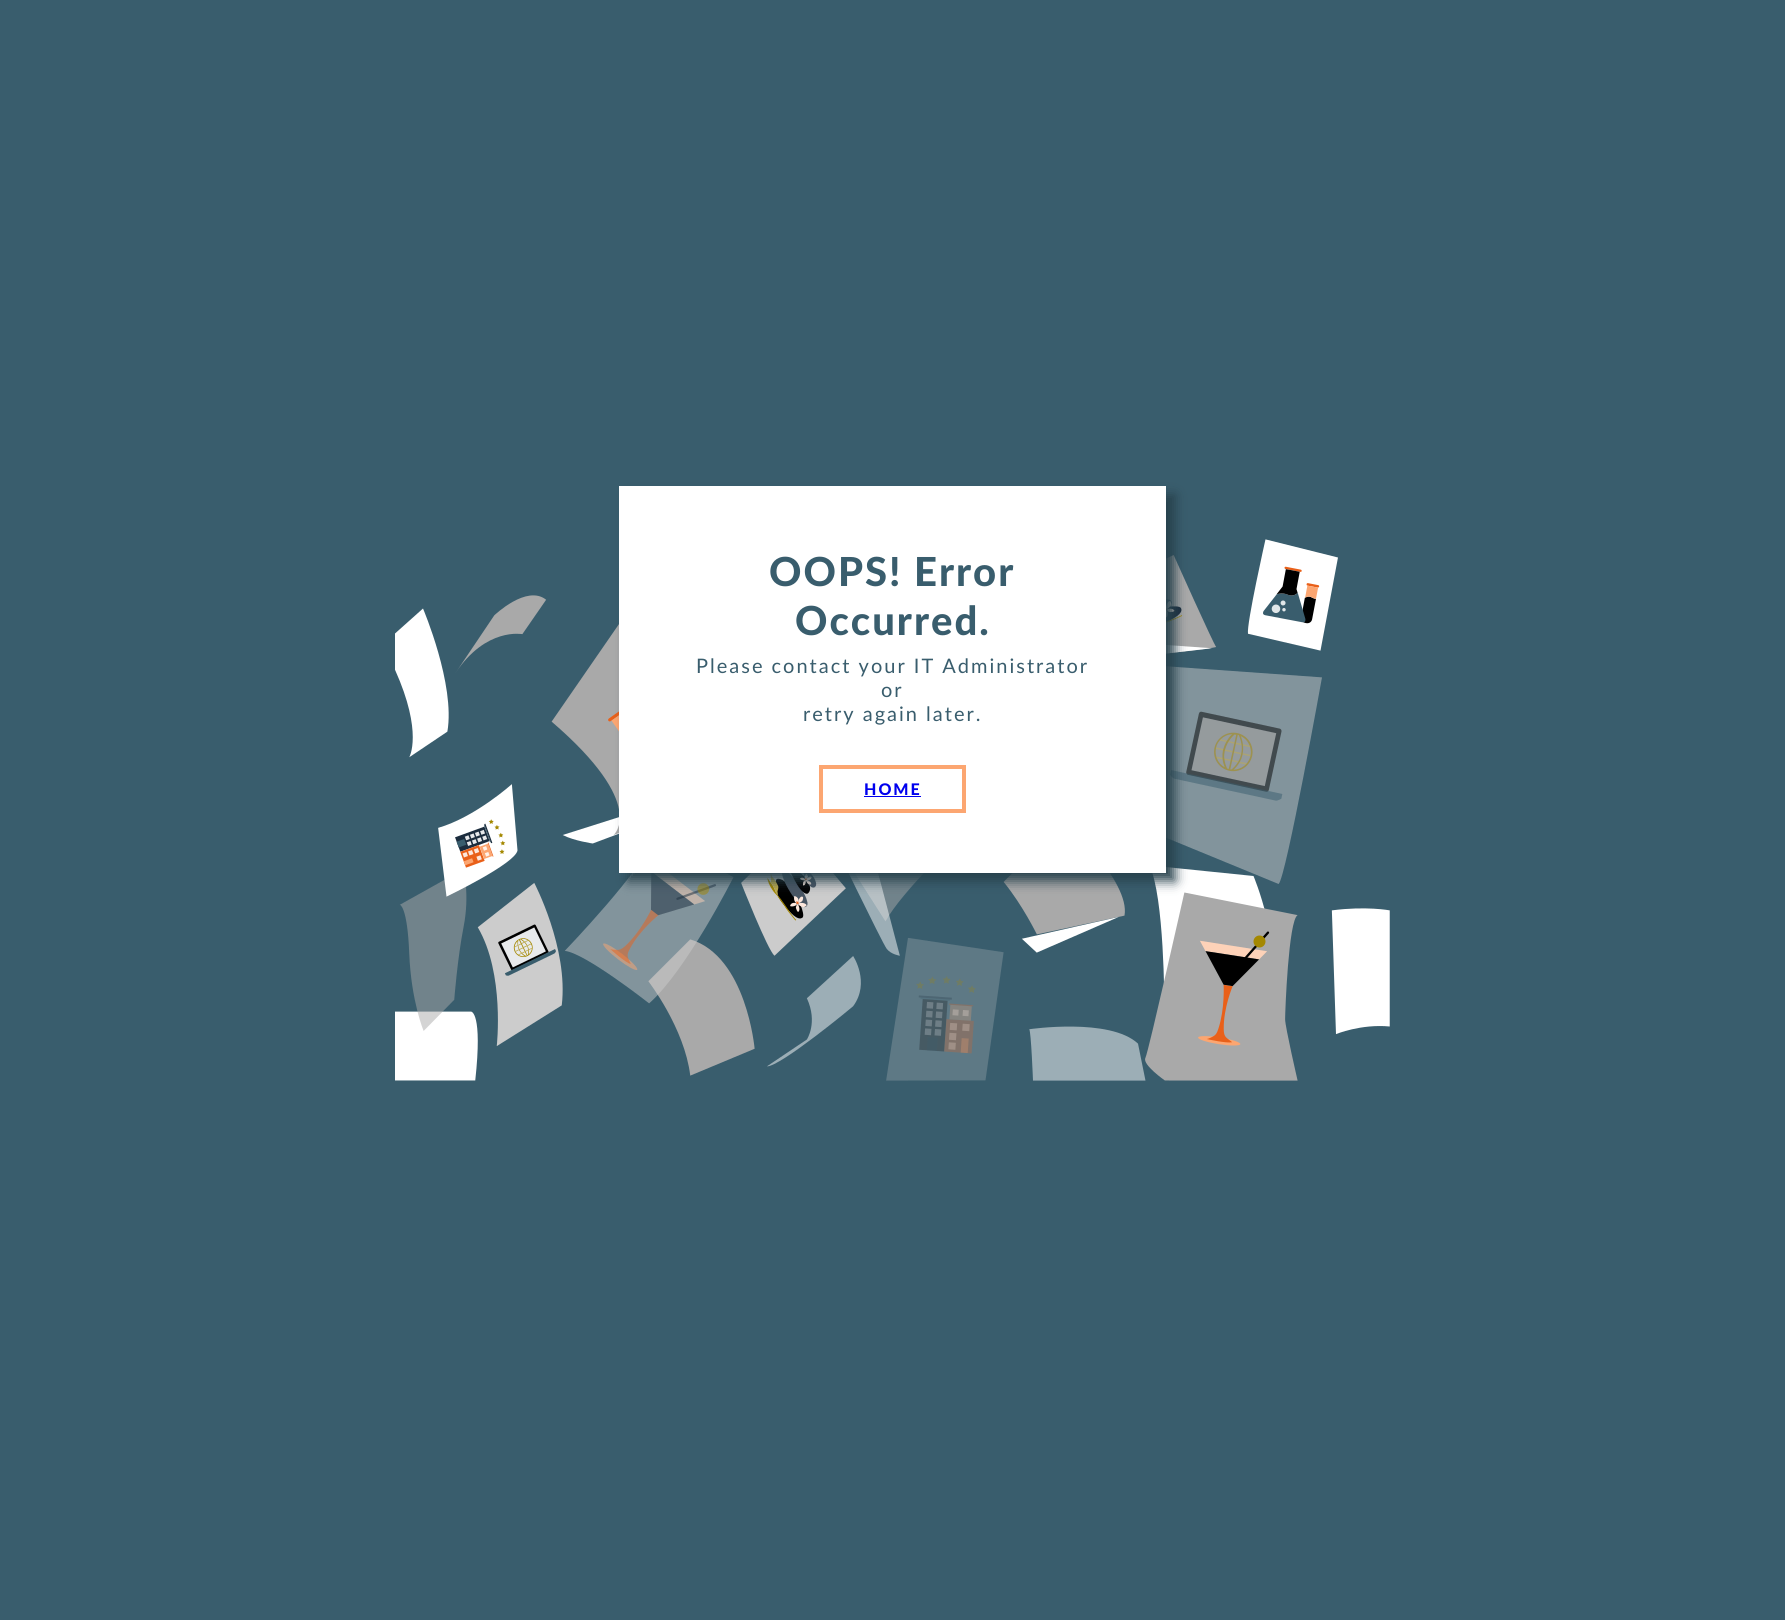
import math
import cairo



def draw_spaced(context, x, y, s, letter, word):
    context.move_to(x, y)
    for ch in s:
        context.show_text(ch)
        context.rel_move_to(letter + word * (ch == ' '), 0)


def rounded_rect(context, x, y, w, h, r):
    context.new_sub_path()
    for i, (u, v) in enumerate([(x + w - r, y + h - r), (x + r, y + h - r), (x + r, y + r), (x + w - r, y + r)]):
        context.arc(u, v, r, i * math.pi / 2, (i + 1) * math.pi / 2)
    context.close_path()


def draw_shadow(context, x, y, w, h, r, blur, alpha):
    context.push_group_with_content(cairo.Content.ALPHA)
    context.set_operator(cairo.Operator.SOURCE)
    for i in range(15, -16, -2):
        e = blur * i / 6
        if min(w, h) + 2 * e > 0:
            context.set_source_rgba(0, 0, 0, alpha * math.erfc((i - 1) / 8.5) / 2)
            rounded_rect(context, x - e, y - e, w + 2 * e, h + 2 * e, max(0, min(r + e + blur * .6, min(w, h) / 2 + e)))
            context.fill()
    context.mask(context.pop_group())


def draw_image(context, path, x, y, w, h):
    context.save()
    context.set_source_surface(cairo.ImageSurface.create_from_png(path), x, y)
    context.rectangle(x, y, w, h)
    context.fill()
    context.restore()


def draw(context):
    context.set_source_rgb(57 / 255, 93 / 255, 109 / 255)
    context.paint()
    draw_image(context, "images/1.png", 395, 539, 995, 542)
    context.set_source_rgb(39 / 255, 65 / 255, 76 / 255)
    draw_shadow(context, 628, 495, 547, 386, 0, 6, 1)
    context.set_source_rgb(1, 1, 1)
    context.rectangle(619, 486, 547, 387)
    context.fill()
    context.rectangle(821, 767, 143, 44)
    context.set_source_rgb(252 / 255, 166 / 255, 113 / 255)
    context.set_line_width(4)
    context.stroke()
    context.set_source_rgb(0, 0, 238 / 255)
    context.rectangle(864, 796, 57, 1)
    context.fill()
    context.select_font_face("Lato Black")
    context.set_font_size(40)
    context.set_source_rgb(57 / 255, 93 / 255, 109 / 255)
    draw_spaced(context, 769, 586, "OOPS! Error", 2, 0)
    draw_spaced(context, 795, 635, "Occurred.", 2, 0)
    context.select_font_face("Lato")
    context.set_font_size(20)
    draw_spaced(context, 696, 673, "Please contact your IT Administrator", 2, 0)
    draw_spaced(context, 881, 697, "or", 2, 0)
    draw_spaced(context, 803, 721, "retry again later.", 2, 0)
    context.select_font_face("Lato Black")
    context.set_font_size(16)
    context.set_source_rgb(0, 0, 238 / 255)
    draw_spaced(context, 864, 795, "HOME", 2, 0)


surface = cairo.ImageSurface(cairo.Format.RGB24, 1785, 1620)
context = cairo.Context(surface)
options = cairo.FontOptions()
options.set_hint_metrics(cairo.HintMetrics.OFF)
options.set_hint_style(cairo.HintStyle.NONE)
context.set_font_options(options)
context.set_miter_limit(4)
draw(context)
surface.write_to_png("out.png")
